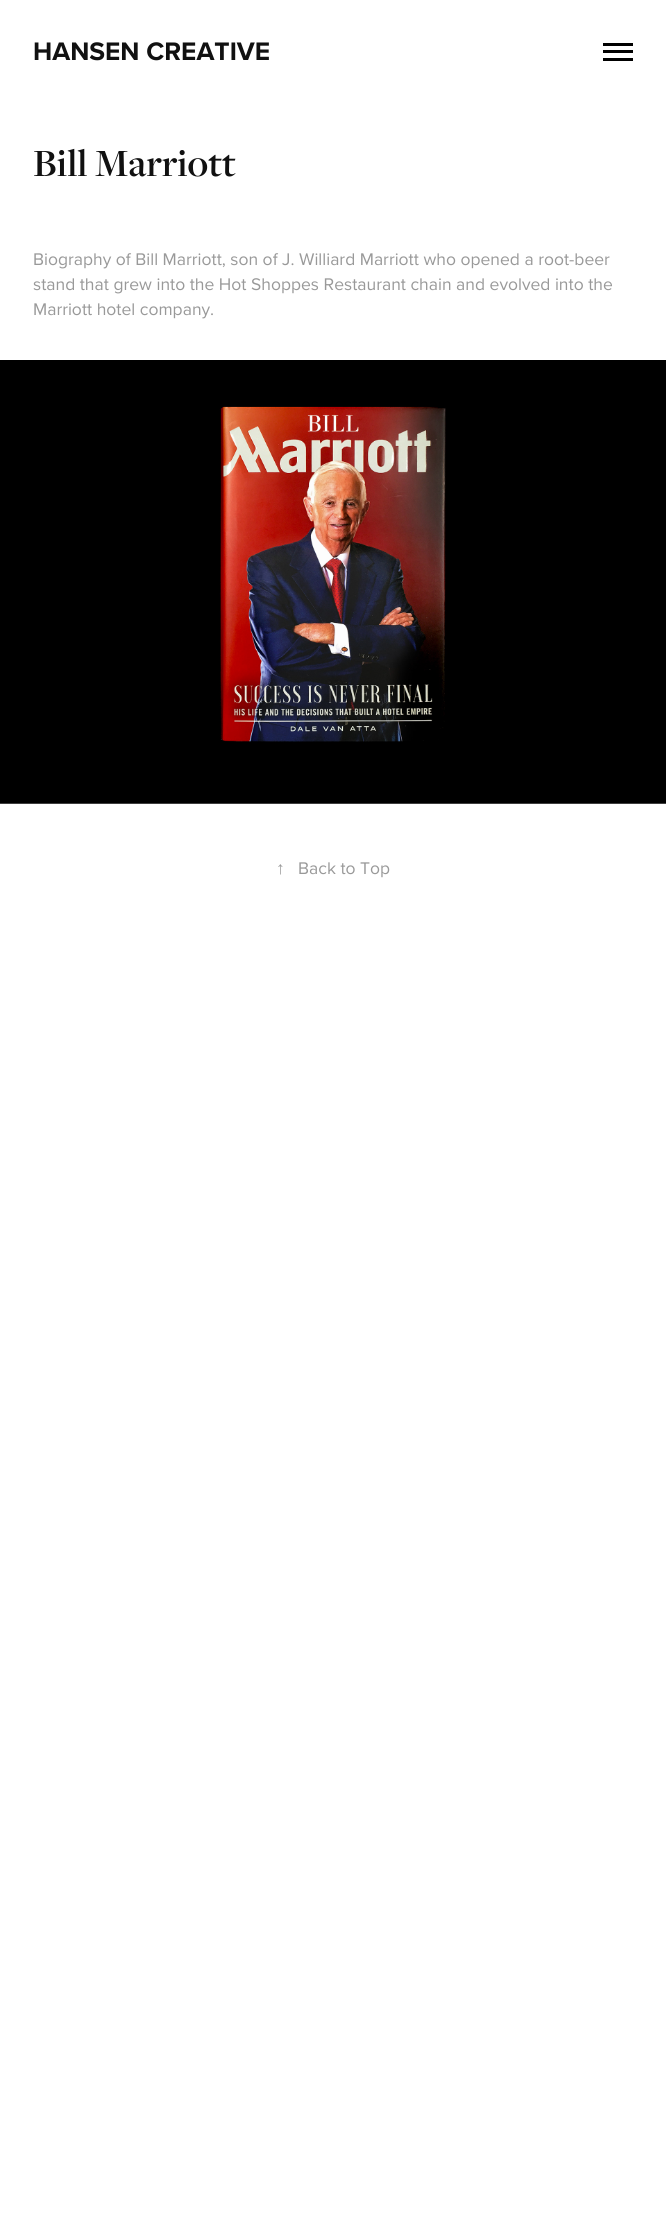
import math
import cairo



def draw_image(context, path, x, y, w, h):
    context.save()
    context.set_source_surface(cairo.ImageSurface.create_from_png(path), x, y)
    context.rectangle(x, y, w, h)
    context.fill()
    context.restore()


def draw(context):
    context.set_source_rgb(1, 1, 1)
    context.paint()
    context.set_source_rgb(0, 0, 0)
    context.rectangle(603, 43, 30, 3)
    context.fill()
    context.rectangle(603, 50, 30, 3)
    context.fill()
    context.rectangle(603, 58, 30, 3)
    context.fill()
    draw_image(context, "images/1.png", 0, 360, 666, 444)
    context.select_font_face("Proxima Nova", cairo.FontSlant.NORMAL, cairo.FontWeight.BOLD)
    context.set_font_size(26.25)
    context.set_source_rgb(17 / 255, 17 / 255, 17 / 255)
    context.move_to(33, 60)
    context.show_text("HANSEN CREATIVE")
    context.select_font_face("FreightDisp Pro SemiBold")
    context.set_font_size(40)
    context.move_to(33, 176)
    context.show_text("Bill Marriott")
    context.select_font_face("Proxima Nova")
    context.set_font_size(17.5)
    context.set_source_rgb(153 / 255, 153 / 255, 153 / 255)
    context.move_to(33, 265)
    context.show_text("Biography of Bill Marriott, son of J. Williard Marriott who opened a root-beer")
    context.move_to(33, 290)
    context.show_text("stand that grew into the Hot Shoppes Restaurant chain and evolved into the")
    context.move_to(33, 315)
    context.show_text("Marriott hotel company.")
    context.select_font_face("Liberation Serif")
    context.move_to(276, 874)
    context.show_text("↑")
    context.select_font_face("Proxima Nova")
    context.move_to(298, 874)
    context.show_text("Back to Top")


surface = cairo.ImageSurface(cairo.Format.RGB24, 666, 2220)
context = cairo.Context(surface)
options = cairo.FontOptions()
options.set_hint_metrics(cairo.HintMetrics.OFF)
options.set_hint_style(cairo.HintStyle.NONE)
context.set_font_options(options)
context.set_miter_limit(4)
draw(context)
surface.write_to_png("out.png")
